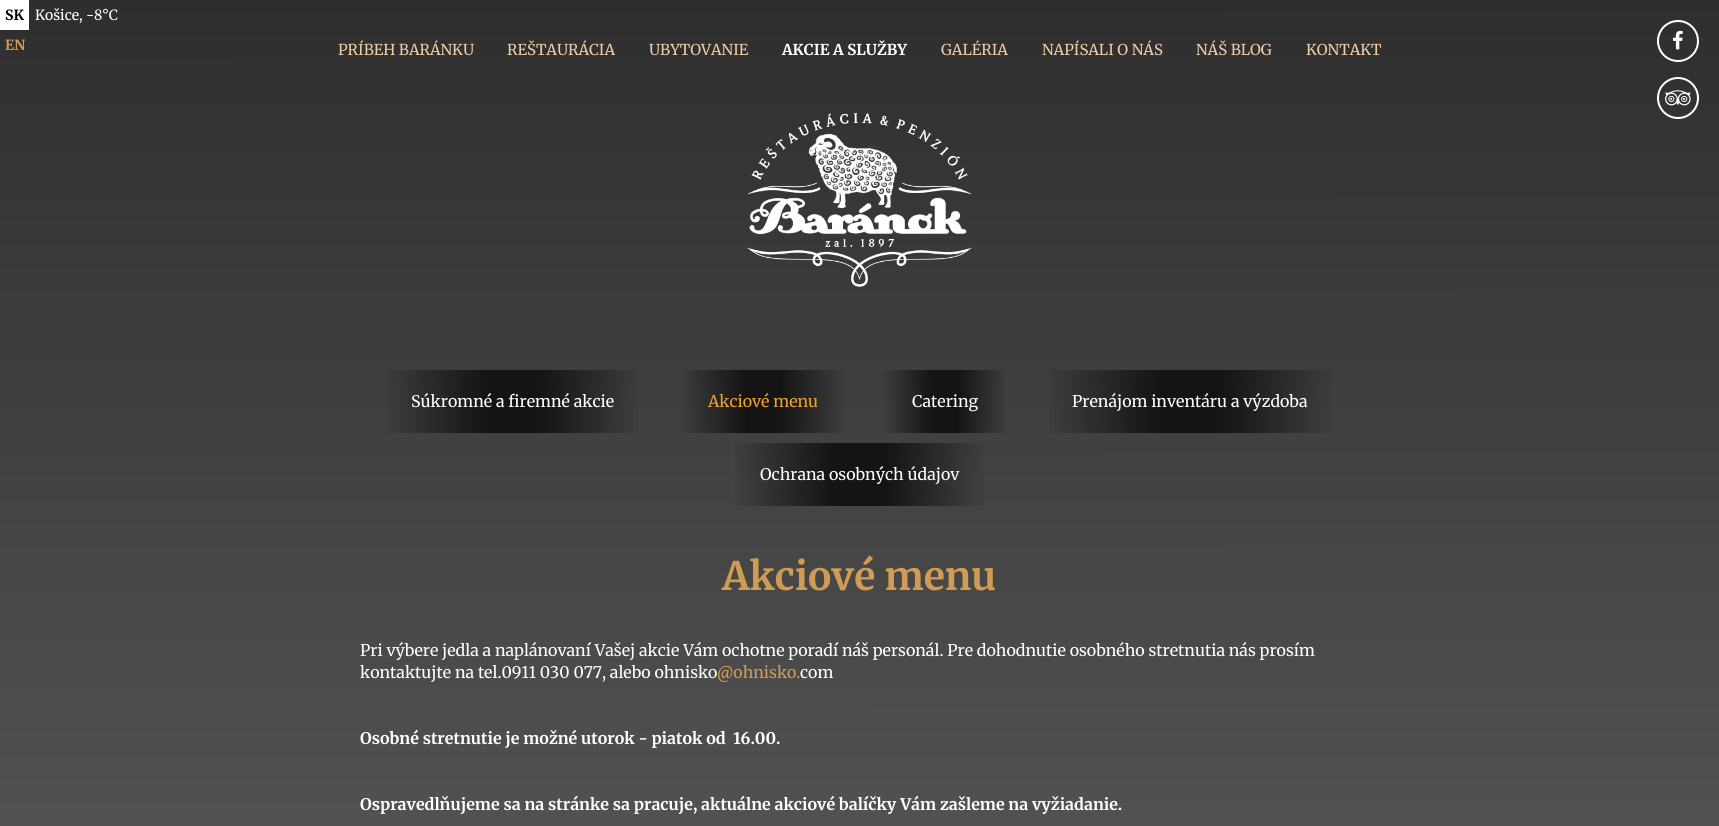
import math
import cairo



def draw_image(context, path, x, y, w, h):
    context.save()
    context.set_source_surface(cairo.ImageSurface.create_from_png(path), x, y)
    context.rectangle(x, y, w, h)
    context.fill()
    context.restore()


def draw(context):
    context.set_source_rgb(1, 1, 1)
    context.paint()
    gradient = cairo.LinearGradient(859, 0, 860, 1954)
    gradient.add_color_stop_rgba(0, 46 / 255, 46 / 255, 46 / 255, 1)
    gradient.add_color_stop_rgba(0.75, 109 / 255, 109 / 255, 109 / 255, 1)
    context.set_source(gradient)
    context.rectangle(0, 0, 1719, 826)
    context.fill()
    context.set_source_rgb(1, 1, 1)
    context.rectangle(0, 0, 29, 30)
    context.fill()
    context.arc(1678, 41, 20, 0, 2 * math.pi)
    context.stroke()
    draw_image(context, "images/1.png", 1673, 30, 10, 20)
    context.arc(1678, 98, 20, 0, 2 * math.pi)
    context.stroke()
    draw_image(context, "images/2.png", 1665, 90, 26, 16)
    draw_image(context, "images/3.png", 747, 113, 225, 174)
    gradient = cairo.LinearGradient(381, 402, 644, 402)
    gradient.add_color_stop_rgba(0, 20 / 255, 20 / 255, 20 / 255, 0)
    gradient.add_color_stop_rgba(0.4, 20 / 255, 20 / 255, 20 / 255, 1)
    gradient.add_color_stop_rgba(0.6, 20 / 255, 20 / 255, 20 / 255, 1)
    gradient.add_color_stop_rgba(1, 20 / 255, 20 / 255, 20 / 255, 0)
    context.set_source(gradient)
    context.rectangle(387, 370, 251, 63)
    context.fill()
    gradient = cairo.LinearGradient(678, 402, 848, 402)
    gradient.add_color_stop_rgba(0, 20 / 255, 20 / 255, 20 / 255, 0)
    gradient.add_color_stop_rgba(0.4, 20 / 255, 20 / 255, 20 / 255, 1)
    gradient.add_color_stop_rgba(0.6, 20 / 255, 20 / 255, 20 / 255, 1)
    gradient.add_color_stop_rgba(1, 20 / 255, 20 / 255, 20 / 255, 0)
    context.set_source(gradient)
    context.rectangle(682, 370, 162, 63)
    context.fill()
    gradient = cairo.LinearGradient(882, 402, 1008, 402)
    gradient.add_color_stop_rgba(0, 20 / 255, 20 / 255, 20 / 255, 0)
    gradient.add_color_stop_rgba(0.4, 20 / 255, 20 / 255, 20 / 255, 1)
    gradient.add_color_stop_rgba(0.6, 20 / 255, 20 / 255, 20 / 255, 1)
    gradient.add_color_stop_rgba(1, 20 / 255, 20 / 255, 20 / 255, 0)
    context.set_source(gradient)
    context.rectangle(885, 370, 120, 63)
    context.fill()
    gradient = cairo.LinearGradient(1042, 402, 1338, 402)
    gradient.add_color_stop_rgba(0, 20 / 255, 20 / 255, 20 / 255, 0)
    gradient.add_color_stop_rgba(0.4, 20 / 255, 20 / 255, 20 / 255, 1)
    gradient.add_color_stop_rgba(0.6, 20 / 255, 20 / 255, 20 / 255, 1)
    gradient.add_color_stop_rgba(1, 20 / 255, 20 / 255, 20 / 255, 0)
    context.set_source(gradient)
    context.rectangle(1049, 370, 282, 63)
    context.fill()
    gradient = cairo.LinearGradient(730, 475, 989, 475)
    gradient.add_color_stop_rgba(0, 20 / 255, 20 / 255, 20 / 255, 0)
    gradient.add_color_stop_rgba(0.4, 20 / 255, 20 / 255, 20 / 255, 1)
    gradient.add_color_stop_rgba(0.6, 20 / 255, 20 / 255, 20 / 255, 1)
    gradient.add_color_stop_rgba(1, 20 / 255, 20 / 255, 20 / 255, 0)
    context.set_source(gradient)
    context.rectangle(735, 443, 249, 63)
    context.fill()
    context.select_font_face("Merriweather", cairo.FontSlant.NORMAL, cairo.FontWeight.BOLD)
    context.set_font_size(14)
    context.set_source_rgb(0, 0, 0)
    context.move_to(5, 20)
    context.show_text("SK")
    context.set_source_rgb(208 / 255, 156 / 255, 83 / 255)
    context.move_to(5, 50)
    context.show_text("EN")
    context.select_font_face("Merriweather")
    context.set_source_rgb(1, 1, 1)
    context.move_to(35, 20)
    context.show_text("Košice, -8°C")
    context.set_font_size(15)
    context.set_source_rgb(240 / 255, 204 / 255, 164 / 255)
    context.move_to(338, 55)
    context.show_text("PRÍBEH BARÁNKU")
    context.move_to(507, 55)
    context.show_text("REŠTAURÁCIA")
    context.move_to(649, 55)
    context.show_text("UBYTOVANIE")
    context.select_font_face("Merriweather", cairo.FontSlant.NORMAL, cairo.FontWeight.BOLD)
    context.set_source_rgb(1, 1, 1)
    context.move_to(782, 55)
    context.show_text("AKCIE A SLUŽBY")
    context.select_font_face("Merriweather")
    context.set_source_rgb(240 / 255, 204 / 255, 164 / 255)
    context.move_to(941, 55)
    context.show_text("GALÉRIA")
    context.move_to(1042, 55)
    context.show_text("NAPÍSALI O NÁS")
    context.move_to(1196, 55)
    context.show_text("NÁŠ BLOG")
    context.move_to(1306, 55)
    context.show_text("KONTAKT")
    context.set_font_size(16)
    context.set_source_rgb(1, 1, 1)
    context.move_to(411, 407)
    context.show_text("Súkromné a firemné akcie")
    context.set_source_rgb(240 / 255, 160 / 255, 46 / 255)
    context.move_to(708, 407)
    context.show_text("Akciové menu")
    context.set_source_rgb(1, 1, 1)
    context.move_to(912, 407)
    context.show_text("Catering")
    context.move_to(1072, 407)
    context.show_text("Prenájom inventáru a výzdoba")
    context.move_to(760, 480)
    context.show_text("Ochrana osobných údajov")
    context.select_font_face("Merriweather", cairo.FontSlant.NORMAL, cairo.FontWeight.BOLD)
    context.set_font_size(39)
    context.set_source_rgb(208 / 255, 156 / 255, 83 / 255)
    context.move_to(722, 590)
    context.show_text("Akciové menu")
    context.select_font_face("Merriweather")
    context.set_font_size(16)
    context.set_source_rgb(1, 1, 1)
    context.move_to(360, 656)
    context.show_text("Pri výbere jedla a naplánovaní Vašej akcie Vám ochotne poradí náš personál. Pre dohodnutie osobného stretnutia nás prosím")
    context.move_to(360, 678)
    context.show_text("kontaktujte na tel.0911 030 077, alebo ohnisko")
    context.set_source_rgb(208 / 255, 156 / 255, 83 / 255)
    context.move_to(717, 678)
    context.show_text("@ohnisko.")
    context.set_source_rgb(1, 1, 1)
    context.move_to(800, 678)
    context.show_text("com")
    context.select_font_face("Merriweather", cairo.FontSlant.NORMAL, cairo.FontWeight.BOLD)
    context.move_to(360, 744)
    context.show_text("Osobné stretnutie je možné utorok - piatok od  16.00.")
    context.move_to(360, 810)
    context.show_text("Ospravedlňujeme sa na stránke sa pracuje, aktuálne akciové balíčky Vám zašleme na vyžiadanie.")


surface = cairo.ImageSurface(cairo.Format.RGB24, 1719, 826)
context = cairo.Context(surface)
options = cairo.FontOptions()
options.set_hint_metrics(cairo.HintMetrics.OFF)
options.set_hint_style(cairo.HintStyle.NONE)
context.set_font_options(options)
context.set_miter_limit(4)
draw(context)
surface.write_to_png("out.png")
